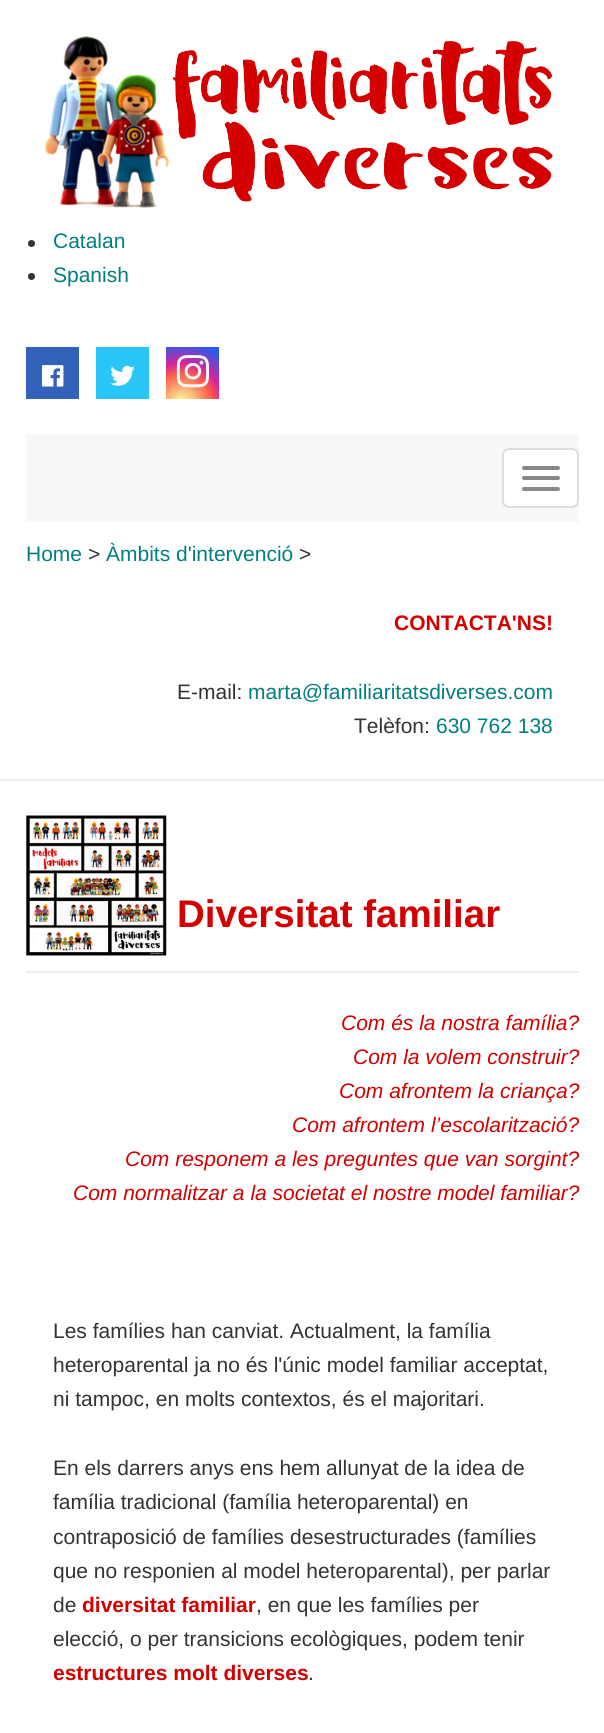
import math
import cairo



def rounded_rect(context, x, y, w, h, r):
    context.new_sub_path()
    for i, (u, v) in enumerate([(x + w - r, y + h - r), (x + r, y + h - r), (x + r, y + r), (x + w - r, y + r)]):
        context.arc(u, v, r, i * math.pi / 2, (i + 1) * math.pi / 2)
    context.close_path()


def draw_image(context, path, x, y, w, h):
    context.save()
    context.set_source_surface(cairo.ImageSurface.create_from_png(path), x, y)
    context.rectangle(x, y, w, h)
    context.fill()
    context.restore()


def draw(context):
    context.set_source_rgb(1, 1, 1)
    context.paint()
    draw_image(context, "images/1.png", 44, 36, 509, 172)
    context.set_source_rgb(51 / 255, 51 / 255, 51 / 255)
    context.arc(31.5, 243.5, 3.5, 0, 2 * math.pi)
    context.fill()
    context.arc(31.5, 276.5, 3.5, 0, 2 * math.pi)
    context.fill()
    context.set_source_rgb(50 / 255, 98 / 255, 185 / 255)
    context.rectangle(26, 347, 53, 52)
    context.fill()
    draw_image(context, "images/2.png", 42, 365, 22, 22)
    context.set_source_rgb(41 / 255, 197 / 255, 246 / 255)
    context.rectangle(96, 347, 53, 52)
    context.fill()
    draw_image(context, "images/3.png", 110, 365, 25, 21)
    gradient = cairo.RadialGradient(182, 403, 0, 182, 403, 67)
    gradient.add_color_stop_rgba(0, 253 / 255, 244 / 255, 151 / 255, 1)
    gradient.add_color_stop_rgba(0.05, 253 / 255, 244 / 255, 151 / 255, 1)
    gradient.add_color_stop_rgba(0.45, 253 / 255, 89 / 255, 73 / 255, 1)
    gradient.add_color_stop_rgba(0.6, 214 / 255, 36 / 255, 159 / 255, 1)
    gradient.add_color_stop_rgba(0.9, 40 / 255, 90 / 255, 235 / 255, 1)
    context.set_source(gradient)
    context.rectangle(166, 347, 53, 52)
    context.fill()
    draw_image(context, "images/4.png", 176, 355, 33, 33)
    context.set_source_rgb(248 / 255, 248 / 255, 248 / 255)
    context.rectangle(26, 434, 553, 88)
    context.fill()
    context.set_source_rgb(1, 1, 1)
    rounded_rect(context, 503, 449, 75, 58, 6)
    context.fill_preserve()
    context.set_source_rgb(221 / 255, 221 / 255, 221 / 255)
    context.stroke()
    context.set_source_rgb(136 / 255, 136 / 255, 136 / 255)
    rounded_rect(context, 522, 466, 38, 4, 2)
    context.fill()
    rounded_rect(context, 522, 476, 38, 4, 2)
    context.fill()
    rounded_rect(context, 522, 487, 38, 4, 2)
    context.fill()
    context.set_source_rgb(238 / 255, 238 / 255, 238 / 255)
    context.rectangle(0, 779, 604, 2)
    context.fill()
    draw_image(context, "images/5.png", 26, 815, 141, 141)
    context.rectangle(26, 971, 553, 2)
    context.fill()
    context.select_font_face("Liberation Sans")
    context.set_font_size(21)
    context.set_source_rgb(0, 127 / 255, 127 / 255)
    context.move_to(53, 248)
    context.show_text("Catalan")
    context.move_to(53, 282)
    context.show_text("Spanish")
    context.move_to(26, 561)
    context.show_text("Home")
    context.set_source_rgb(51 / 255, 51 / 255, 51 / 255)
    context.move_to(88, 561)
    context.show_text(">")
    context.set_source_rgb(0, 127 / 255, 127 / 255)
    context.move_to(106, 561)
    context.show_text("Àmbits d'intervenció")
    context.set_source_rgb(51 / 255, 51 / 255, 51 / 255)
    context.move_to(299, 561)
    context.show_text(">")
    context.select_font_face("Liberation Sans", cairo.FontSlant.NORMAL, cairo.FontWeight.BOLD)
    context.set_source_rgb(212 / 255, 0, 0)
    context.move_to(394, 630)
    context.show_text("CONTACTA'NS!")
    context.select_font_face("Liberation Sans")
    context.set_source_rgb(51 / 255, 51 / 255, 51 / 255)
    context.move_to(177, 699)
    context.show_text("E-mail:")
    context.set_source_rgb(0, 127 / 255, 127 / 255)
    context.move_to(248, 699)
    context.show_text("marta@familiaritatsdiverses.com")
    context.set_source_rgb(51 / 255, 51 / 255, 51 / 255)
    context.move_to(354, 733)
    context.show_text("Telèfon:")
    context.set_source_rgb(0, 127 / 255, 127 / 255)
    context.move_to(436, 733)
    context.show_text("630 762 138")
    context.select_font_face("Liberation Sans", cairo.FontSlant.NORMAL, cairo.FontWeight.BOLD)
    context.set_font_size(38.5)
    context.set_source_rgb(212 / 255, 0, 0)
    context.move_to(177, 927)
    context.show_text("Diversitat familiar")
    context.select_font_face("Liberation Sans", cairo.FontSlant.ITALIC)
    context.set_font_size(21)
    context.move_to(341, 1030)
    context.show_text("Com és la nostra família?")
    context.move_to(353, 1064)
    context.show_text("Com la volem construir?")
    context.move_to(339, 1098)
    context.show_text("Com afrontem la criança?")
    context.move_to(292, 1132)
    context.show_text("Com afrontem l’escolarització?")
    context.move_to(125, 1166)
    context.show_text("Com responem a les preguntes que van sorgint?")
    context.move_to(73, 1200)
    context.show_text("Com normalitzar a la societat el nostre model familiar?")
    context.select_font_face("Liberation Sans")
    context.set_source_rgb(51 / 255, 51 / 255, 51 / 255)
    context.move_to(53, 1338)
    context.show_text("Les famílies han canviat. Actualment, la família")
    context.move_to(53, 1372)
    context.show_text("heteroparental ja no és l'únic model familiar acceptat,")
    context.move_to(53, 1406)
    context.show_text("ni tampoc, en molts contextos, és el majoritari.")
    context.move_to(53, 1475)
    context.show_text("En els darrers anys ens hem allunyat de la idea de")
    context.move_to(53, 1509)
    context.show_text("família tradicional (família heteroparental) en")
    context.move_to(53, 1544)
    context.show_text("contraposició de famílies desestructurades (famílies")
    context.move_to(53, 1578)
    context.show_text("que no responien al model heteroparental), per parlar")
    context.move_to(53, 1612)
    context.show_text("de")
    context.select_font_face("Liberation Sans", cairo.FontSlant.NORMAL, cairo.FontWeight.BOLD)
    context.set_source_rgb(212 / 255, 0, 0)
    context.move_to(82, 1612)
    context.show_text("diversitat familiar")
    context.select_font_face("Liberation Sans")
    context.set_source_rgb(51 / 255, 51 / 255, 51 / 255)
    context.move_to(256, 1612)
    context.show_text(", en que les famílies per")
    context.move_to(53, 1646)
    context.show_text("elecció, o per transicions ecològiques, podem tenir")
    context.select_font_face("Liberation Sans", cairo.FontSlant.NORMAL, cairo.FontWeight.BOLD)
    context.set_source_rgb(212 / 255, 0, 0)
    context.move_to(53, 1680)
    context.show_text("estructures molt diverses")
    context.select_font_face("Liberation Sans")
    context.set_source_rgb(51 / 255, 51 / 255, 51 / 255)
    context.move_to(308, 1680)
    context.show_text(".")


surface = cairo.ImageSurface(cairo.Format.RGB24, 604, 1733)
context = cairo.Context(surface)
options = cairo.FontOptions()
options.set_hint_metrics(cairo.HintMetrics.OFF)
options.set_hint_style(cairo.HintStyle.NONE)
context.set_font_options(options)
context.set_miter_limit(4)
draw(context)
surface.write_to_png("out.png")
